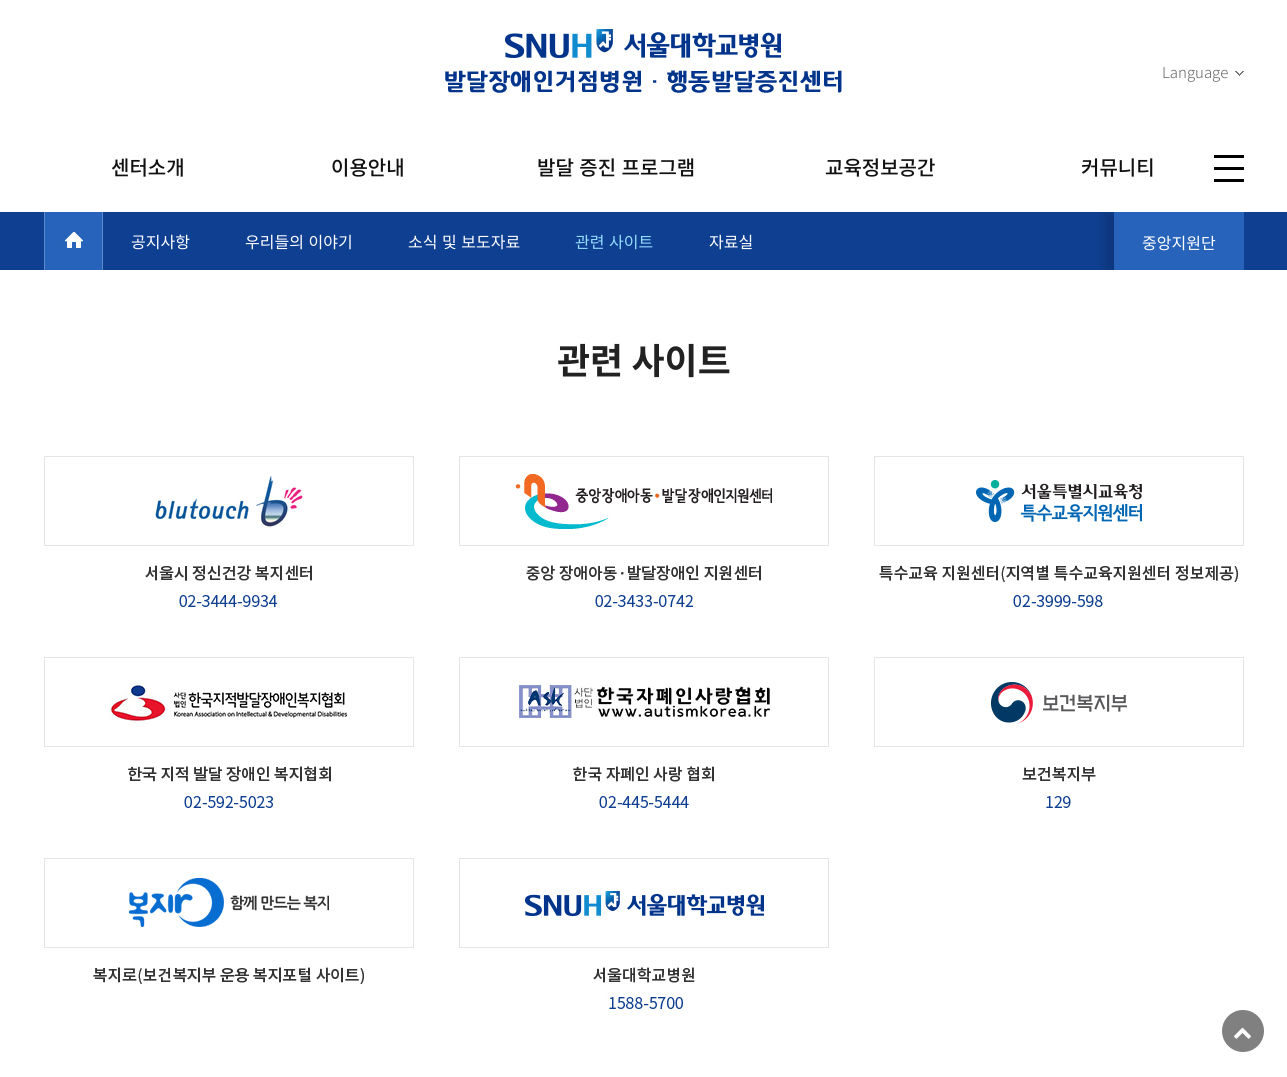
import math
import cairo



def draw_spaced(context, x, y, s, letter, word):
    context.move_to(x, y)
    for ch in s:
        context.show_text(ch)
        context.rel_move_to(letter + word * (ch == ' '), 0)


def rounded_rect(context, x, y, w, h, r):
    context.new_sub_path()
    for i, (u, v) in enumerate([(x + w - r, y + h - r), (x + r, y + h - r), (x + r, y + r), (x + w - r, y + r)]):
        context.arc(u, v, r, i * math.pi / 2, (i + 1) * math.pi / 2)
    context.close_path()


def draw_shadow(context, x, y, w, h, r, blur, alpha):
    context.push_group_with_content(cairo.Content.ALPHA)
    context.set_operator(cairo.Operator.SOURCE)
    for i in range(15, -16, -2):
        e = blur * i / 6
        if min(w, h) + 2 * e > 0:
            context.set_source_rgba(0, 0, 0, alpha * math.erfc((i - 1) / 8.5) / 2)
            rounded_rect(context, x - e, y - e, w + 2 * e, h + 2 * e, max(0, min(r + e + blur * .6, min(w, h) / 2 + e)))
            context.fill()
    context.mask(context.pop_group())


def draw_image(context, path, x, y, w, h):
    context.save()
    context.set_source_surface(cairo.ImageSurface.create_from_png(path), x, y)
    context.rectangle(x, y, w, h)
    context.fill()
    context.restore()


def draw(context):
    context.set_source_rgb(1, 1, 1)
    context.paint()
    draw_image(context, "images/1.png", 445, 29, 397, 64)
    draw_image(context, "images/2.png", 1235, 71, 9, 5)
    draw_image(context, "images/3.png", 1214, 155, 30, 27)
    context.set_source_rgb(15 / 255, 63 / 255, 145 / 255)
    context.rectangle(0, 212, 1287, 58)
    context.fill()
    draw_image(context, "images/4.png", 44, 212, 59, 58)
    context.save()
    context.rectangle(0, 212, 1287, 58)
    context.clip()
    context.set_source_rgb(0, 0, 0)
    draw_shadow(context, 1104, 212, 130, 59, 0, 5, 0.15)
    context.restore()
    context.set_source_rgb(39 / 255, 99 / 255, 186 / 255)
    context.rectangle(1114, 212, 130, 58)
    context.fill()
    draw_image(context, "images/5.png", 44, 456, 1200, 560)
    context.set_source_rgb(128 / 255, 128 / 255, 128 / 255)
    context.arc(1243, 1031, 21, 0, 2 * math.pi)
    context.fill()
    draw_image(context, "images/6.png", 1234, 1027, 17, 12)
    context.select_font_face("Noto Sans KR Light")
    context.set_font_size(15)
    context.set_source_rgb(102 / 255, 102 / 255, 102 / 255)
    context.move_to(1162, 78)
    context.show_text("Language")
    context.select_font_face("Noto Sans KR Medium")
    context.set_font_size(20)
    context.set_source_rgb(17 / 255, 17 / 255, 17 / 255)
    context.move_to(111, 175)
    context.show_text("센터소개")
    context.move_to(331, 175)
    context.show_text("이용안내")
    draw_spaced(context, 537, 175, "발달 증진 프로그램", 0, 1)
    context.move_to(825, 175)
    context.show_text("교육정보공간")
    context.move_to(1081, 175)
    context.show_text("커뮤니티")
    context.select_font_face("Noto Sans KR")
    context.set_font_size(16)
    context.set_source_rgb(1, 1, 1)
    context.move_to(131, 248)
    context.show_text("공지사항")
    draw_spaced(context, 245, 248, "우리들의 이야기", 0, 1)
    draw_spaced(context, 408, 248, "소식 및 보도자료", 0, 1)
    context.set_source_rgb(149 / 255, 220 / 255, 1)
    draw_spaced(context, 575, 248, "관련 사이트", 0, 1)
    context.set_source_rgb(1, 1, 1)
    context.move_to(709, 248)
    context.show_text("자료실")
    context.move_to(1142, 249)
    context.show_text("중앙지원단")
    context.select_font_face("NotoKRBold", cairo.FontSlant.NORMAL, cairo.FontWeight.BOLD)
    context.set_font_size(36)
    context.set_source_rgb(34 / 255, 34 / 255, 34 / 255)
    context.move_to(557, 374)
    context.show_text("관련 사이트")


surface = cairo.ImageSurface(cairo.Format.RGB24, 1287, 1077)
context = cairo.Context(surface)
options = cairo.FontOptions()
options.set_hint_metrics(cairo.HintMetrics.OFF)
options.set_hint_style(cairo.HintStyle.NONE)
context.set_font_options(options)
context.set_miter_limit(4)
draw(context)
surface.write_to_png("out.png")
